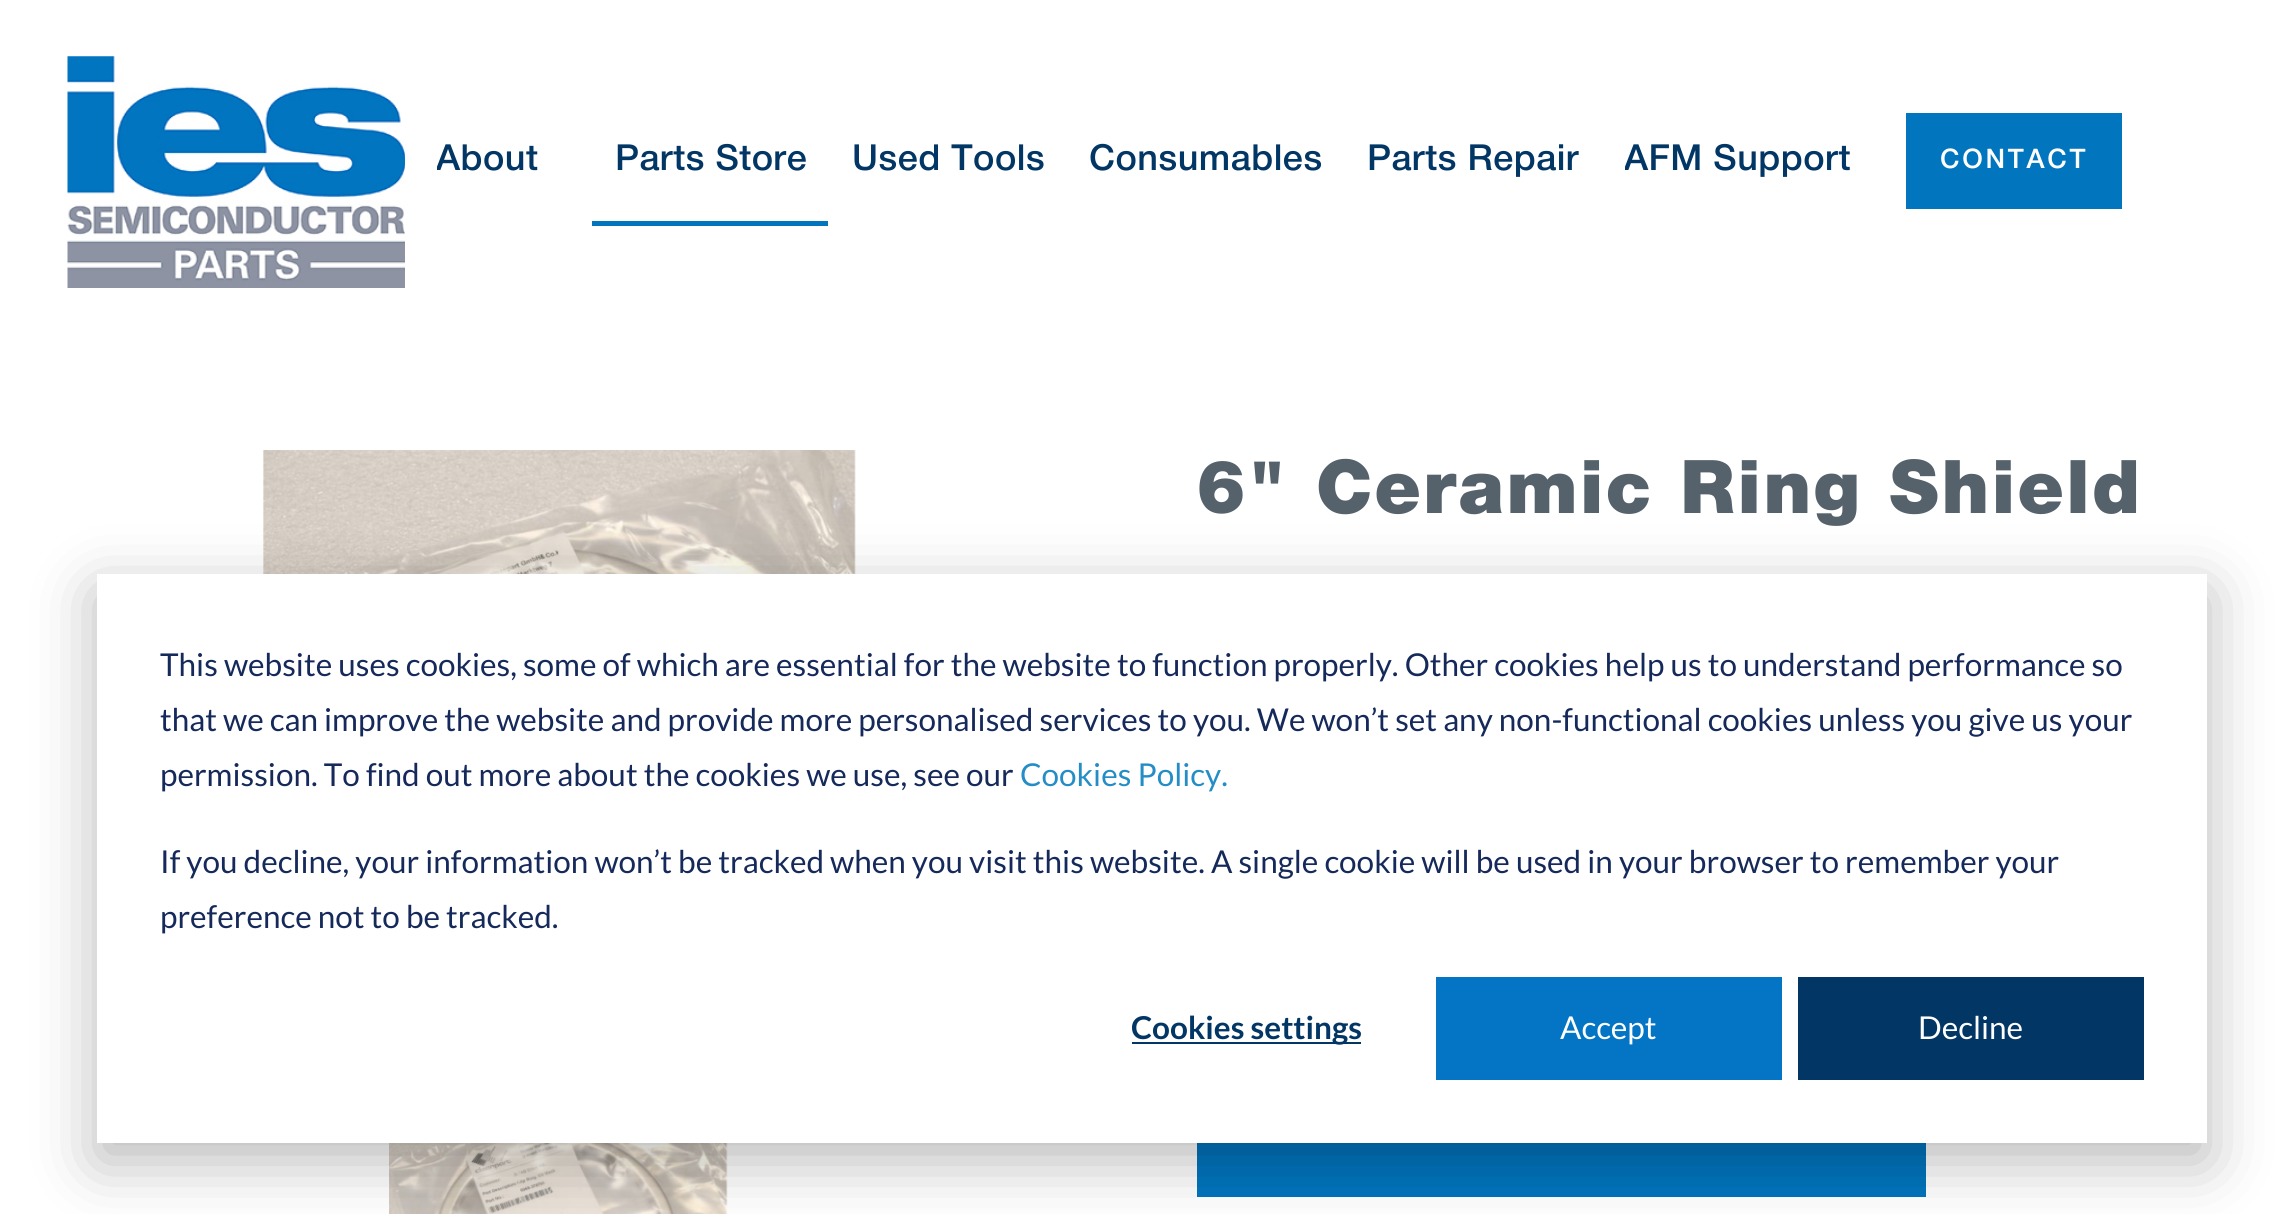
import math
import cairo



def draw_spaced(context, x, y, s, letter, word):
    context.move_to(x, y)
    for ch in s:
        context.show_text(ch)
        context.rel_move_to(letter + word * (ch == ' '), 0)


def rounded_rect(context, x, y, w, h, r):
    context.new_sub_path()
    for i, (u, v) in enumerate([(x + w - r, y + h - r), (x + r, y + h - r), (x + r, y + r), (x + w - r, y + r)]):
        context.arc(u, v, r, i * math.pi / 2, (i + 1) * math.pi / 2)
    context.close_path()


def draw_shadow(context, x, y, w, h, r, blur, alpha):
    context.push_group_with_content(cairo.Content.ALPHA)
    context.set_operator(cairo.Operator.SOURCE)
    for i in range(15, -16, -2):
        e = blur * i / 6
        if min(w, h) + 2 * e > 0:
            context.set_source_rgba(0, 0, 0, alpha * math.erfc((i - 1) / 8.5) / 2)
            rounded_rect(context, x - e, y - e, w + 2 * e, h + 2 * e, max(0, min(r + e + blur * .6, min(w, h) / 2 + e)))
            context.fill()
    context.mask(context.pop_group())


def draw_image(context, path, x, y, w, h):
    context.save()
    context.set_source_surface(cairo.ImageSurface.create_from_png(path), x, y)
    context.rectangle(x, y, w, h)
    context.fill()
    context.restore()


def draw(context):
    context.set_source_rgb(1, 1, 1)
    context.paint()
    draw_image(context, "images/1.png", 67, 56, 338, 232)
    context.set_source_rgb(1 / 255, 117 / 255, 190 / 255)
    context.rectangle(592, 221, 236, 5)
    context.fill()
    context.rectangle(1906, 113, 216, 96)
    context.fill()
    draw_image(context, "images/2.png", 263, 450, 593, 124)
    draw_image(context, "images/3.png", 389, 1143, 339, 71)
    context.rectangle(1197, 1143, 729, 54)
    context.fill()
    context.set_source_rgb(0, 0, 0)
    draw_shadow(context, 97, 592, 2110, 569, 0, 31.5, 0.28)
    context.set_source_rgb(1, 1, 1)
    context.rectangle(97, 574, 2110, 569)
    context.fill()
    context.set_source_rgb(2 / 255, 54 / 255, 101 / 255)
    context.rectangle(1132, 1042, 229, 2)
    context.fill()
    context.set_source_rgb(4 / 255, 116 / 255, 197 / 255)
    context.rectangle(1436, 977, 346, 103)
    context.fill()
    context.set_source_rgb(2 / 255, 54 / 255, 101 / 255)
    context.rectangle(1798, 977, 346, 103)
    context.fill()
    context.save()
    context.rectangle(437, 124, 132, 76)
    context.clip()
    context.select_font_face("Helvetica Neue Medium")
    context.set_font_size(36)
    draw_spaced(context, 436, 170, "About", 0.5, 0)
    context.restore()
    context.select_font_face("Helvetica Neue Medium")
    context.set_font_size(36)
    draw_spaced(context, 615, 170, "Parts Store", 0.5, 0)
    draw_spaced(context, 852, 170, "Used Tools", 0.5, 0)
    draw_spaced(context, 1089, 170, "Consumables", 0.5, 0)
    draw_spaced(context, 1367, 170, "Parts Repair", 0.5, 0)
    context.save()
    context.rectangle(1625, 124, 225, 76)
    context.clip()
    draw_spaced(context, 1624, 170, "AFM Support", 0.5, 0)
    context.restore()
    context.set_font_size(27)
    context.set_source_rgb(1, 1, 1)
    draw_spaced(context, 1940, 168, "CONTACT", 2.75, 0)
    context.select_font_face("Helvetica Neue Black")
    context.set_font_size(74.25)
    context.set_source_rgb(85 / 255, 98 / 255, 108 / 255)
    draw_spaced(context, 1196, 513, "6\" Ceramic Ring Shield", 2.25, 0)
    context.select_font_face("Lato")
    context.set_font_size(31.5)
    context.set_source_rgb(21 / 255, 41 / 255, 90 / 255)
    context.move_to(160, 676)
    context.show_text("This website uses cookies, some of which are essential for the website to function properly. Other cookies help us to understand performance so")
    context.move_to(160, 731)
    context.show_text("that we can improve the website and provide more personalised services to you. We won’t set any non-functional cookies unless you give us your")
    context.move_to(160, 786)
    context.show_text("permission. To find out more about the cookies we use, see our")
    context.set_source_rgb(37 / 255, 141 / 255, 198 / 255)
    context.move_to(1020, 786)
    context.show_text("Cookies Policy.")
    context.set_source_rgb(21 / 255, 41 / 255, 90 / 255)
    context.move_to(160, 873)
    context.show_text("If you decline, your information won’t be tracked when you visit this website. A single cookie will be used in your browser to remember your")
    context.move_to(160, 928)
    context.show_text("preference not to be tracked.")
    context.select_font_face("Lato", cairo.FontSlant.NORMAL, cairo.FontWeight.BOLD)
    context.set_source_rgb(2 / 255, 54 / 255, 101 / 255)
    context.move_to(1131, 1039)
    context.show_text("Cookies settings")
    context.select_font_face("Lato")
    context.set_source_rgb(1, 1, 1)
    context.move_to(1560, 1039)
    context.show_text("Accept")
    context.move_to(1918, 1039)
    context.show_text("Decline")


surface = cairo.ImageSurface(cairo.Format.RGB24, 2279, 1214)
context = cairo.Context(surface)
options = cairo.FontOptions()
options.set_hint_metrics(cairo.HintMetrics.OFF)
options.set_hint_style(cairo.HintStyle.NONE)
context.set_font_options(options)
context.set_miter_limit(4)
draw(context)
surface.write_to_png("out.png")
